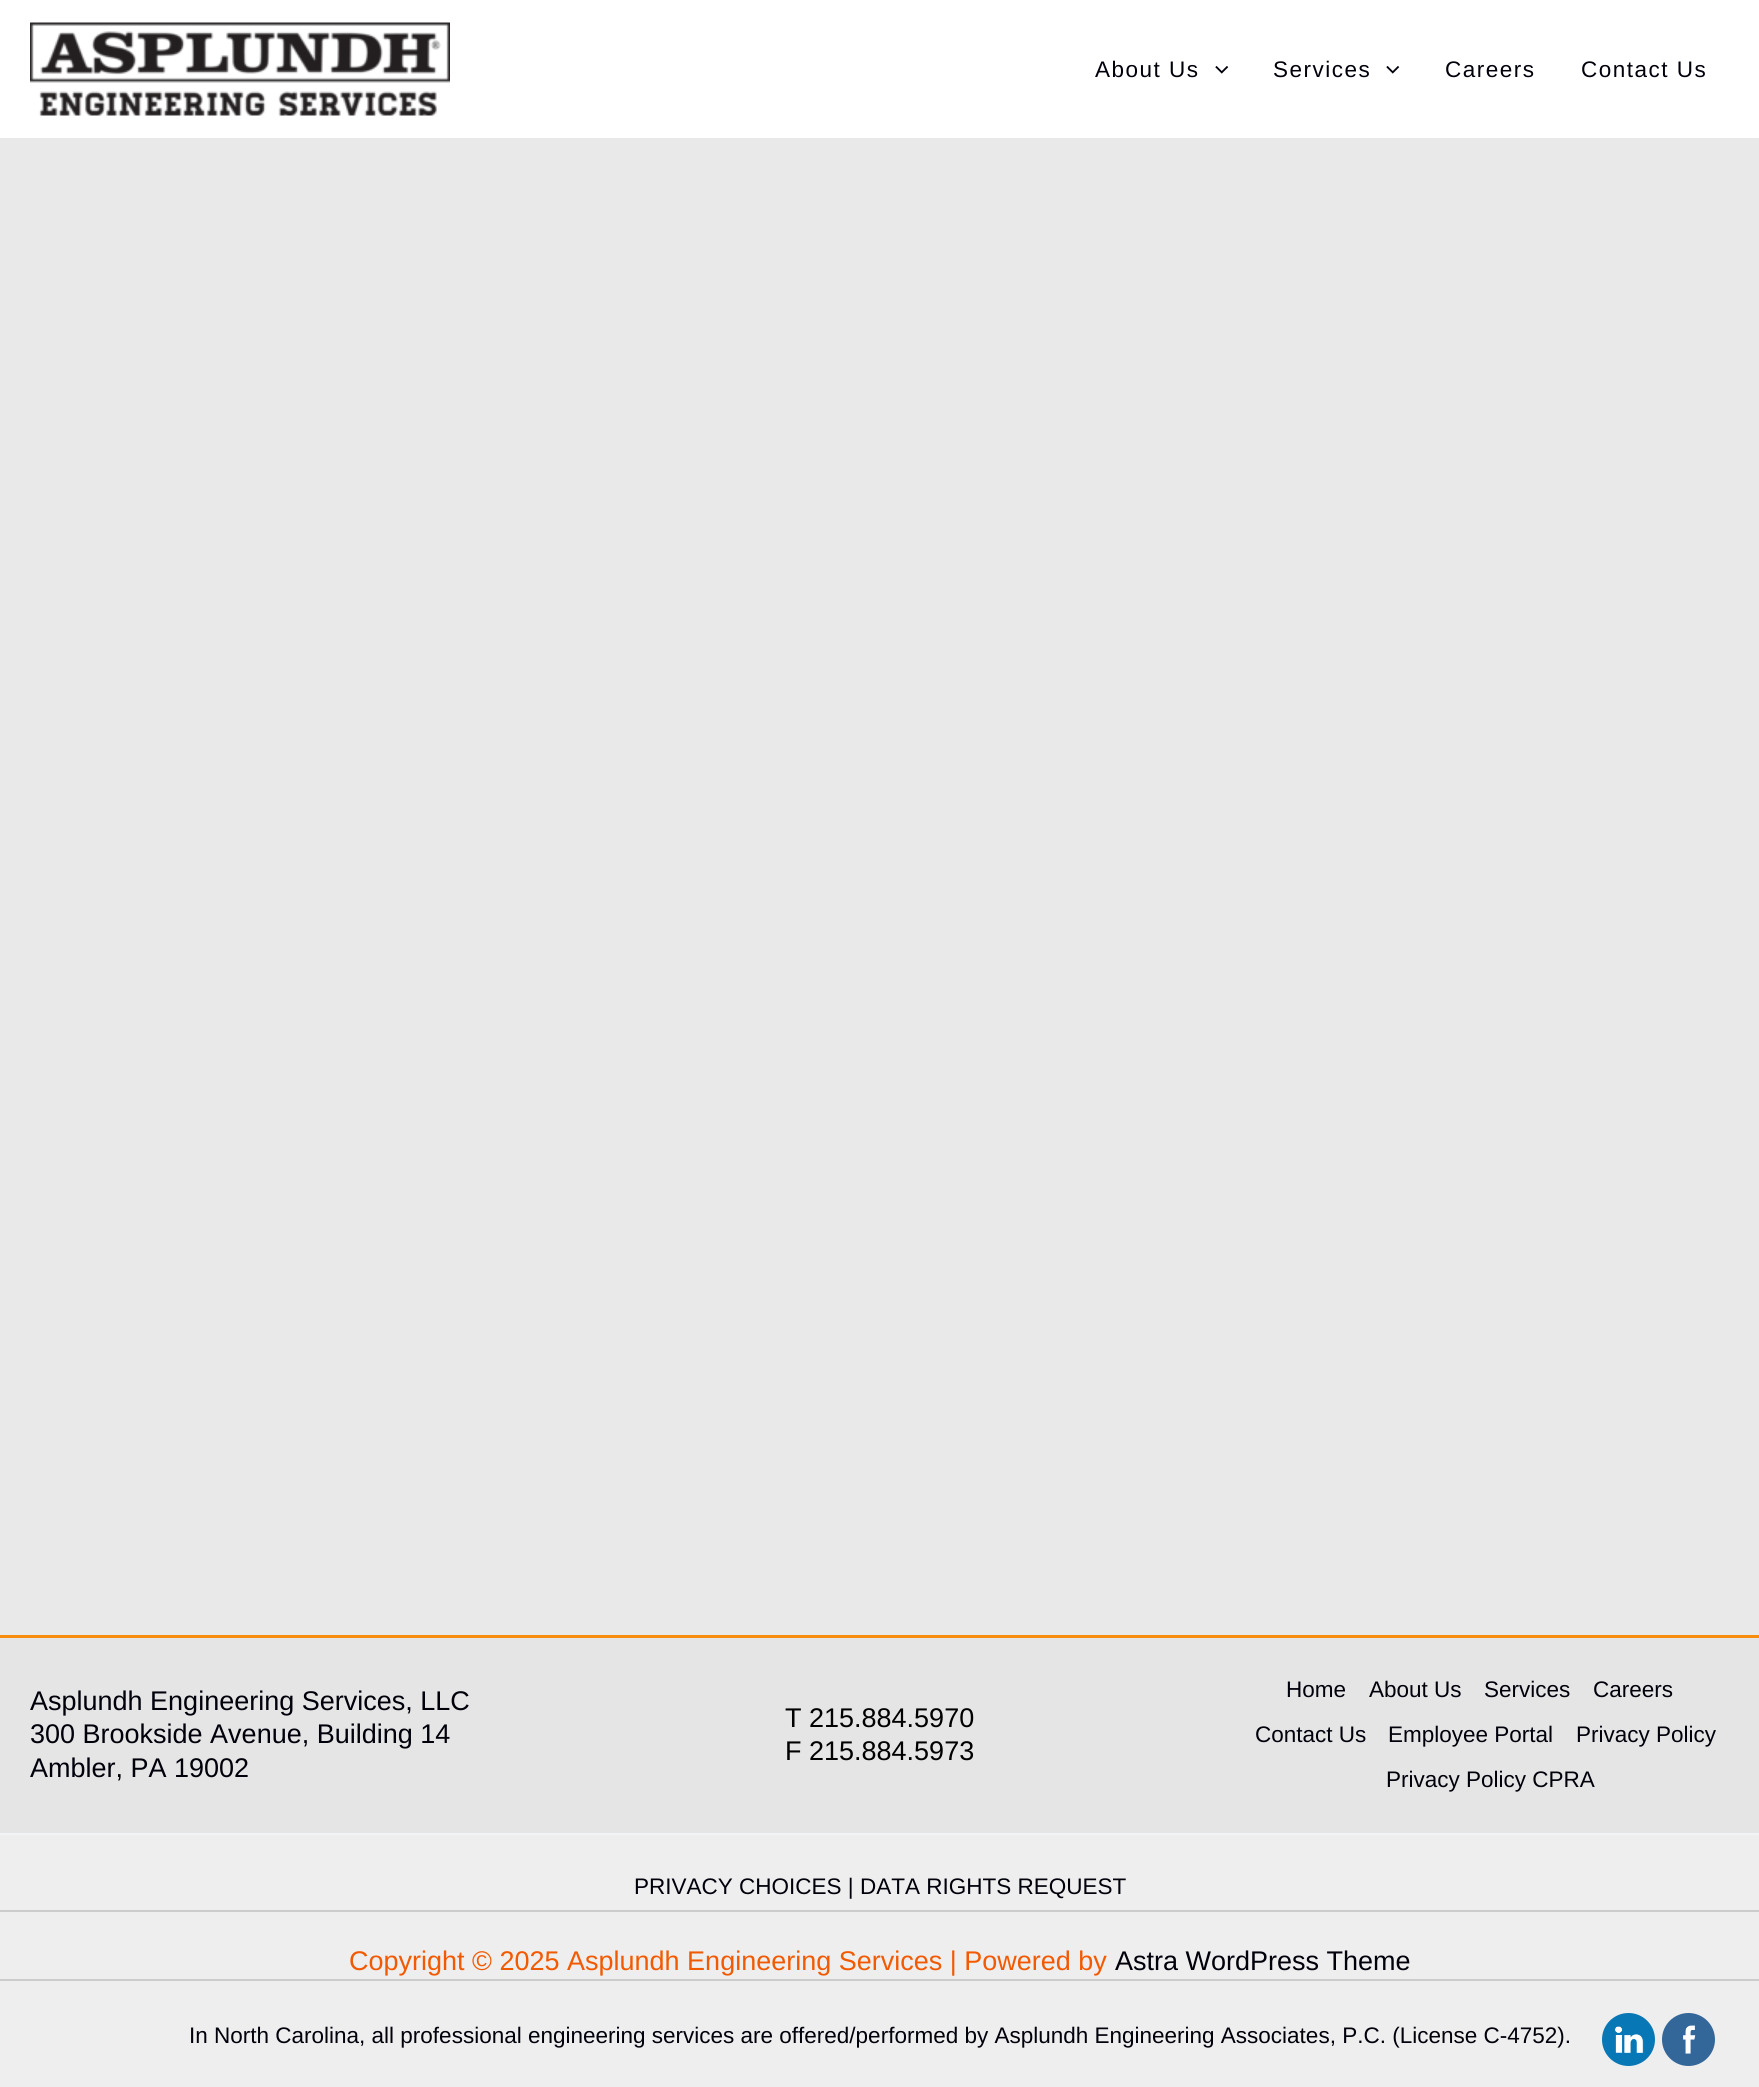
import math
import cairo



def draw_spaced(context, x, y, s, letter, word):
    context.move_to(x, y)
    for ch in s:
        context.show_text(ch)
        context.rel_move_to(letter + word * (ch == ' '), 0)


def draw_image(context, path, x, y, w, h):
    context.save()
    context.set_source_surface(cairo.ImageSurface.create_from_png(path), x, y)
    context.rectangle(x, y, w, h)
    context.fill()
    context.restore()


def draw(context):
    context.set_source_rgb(233 / 255, 233 / 255, 233 / 255)
    context.paint()
    context.set_source_rgb(1, 1, 1)
    context.rectangle(0, 0, 1759, 138)
    context.fill()
    draw_image(context, "images/1.png", 30, 22, 420, 94)
    draw_image(context, "images/2.png", 1215, 66, 14, 8)
    draw_image(context, "images/2.png", 1386, 66, 14, 8)
    context.set_source_rgb(229 / 255, 229 / 255, 229 / 255)
    context.rectangle(0, 1638, 1759, 195)
    context.fill()
    context.set_source_rgb(247 / 255, 141 / 255, 12 / 255)
    context.rectangle(0, 1635, 1759, 3)
    context.fill()
    context.set_source_rgb(238 / 255, 238 / 255, 238 / 255)
    context.rectangle(0, 1835, 1759, 252)
    context.fill()
    context.set_source_rgb(242 / 255, 245 / 255, 247 / 255)
    context.rectangle(0, 1833, 1759, 2)
    context.fill()
    context.set_source_rgb(204 / 255, 204 / 255, 204 / 255)
    context.rectangle(0, 1910, 1759, 2)
    context.fill()
    context.rectangle(0, 1979, 1759, 2)
    context.fill()
    context.set_source_rgb(8 / 255, 119 / 255, 181 / 255)
    context.arc(1628.5, 2039.5, 26.5, 0, 2 * math.pi)
    context.fill()
    draw_image(context, "images/3.png", 1615, 2026, 29, 27)
    context.set_source_rgb(51 / 255, 102 / 255, 153 / 255)
    context.arc(1688.5, 2039.5, 26.5, 0, 2 * math.pi)
    context.fill()
    draw_image(context, "images/4.png", 1683, 2025, 13, 29)
    context.select_font_face("Liberation Sans")
    context.set_font_size(22.5)
    context.set_source_rgb(0, 0, 11 / 255)
    draw_spaced(context, 1095, 77, "About Us", 1.5, 0)
    draw_spaced(context, 1273, 77, "Services", 1.5, 0)
    draw_spaced(context, 1445, 77, "Careers", 1.5, 0)
    draw_spaced(context, 1581, 77, "Contact Us", 1.5, 0)
    context.set_font_size(27)
    context.move_to(30, 1710)
    context.show_text("Asplundh Engineering Services, LLC")
    context.move_to(30, 1743)
    context.show_text("300 Brookside Avenue, Building 14")
    context.move_to(30, 1777)
    context.show_text("Ambler, PA 19002")
    context.set_source_rgb(0, 0, 0)
    context.move_to(785, 1727)
    context.show_text("T 215.884.5970")
    context.move_to(785, 1760)
    context.show_text("F 215.884.5973")
    context.set_font_size(22.5)
    context.set_source_rgb(0, 0, 11 / 255)
    context.move_to(1286, 1697)
    context.show_text("Home")
    context.move_to(1369, 1697)
    context.show_text("About Us")
    context.move_to(1484, 1697)
    context.show_text("Services")
    context.move_to(1593, 1697)
    context.show_text("Careers")
    context.move_to(1255, 1742)
    context.show_text("Contact Us")
    context.move_to(1388, 1742)
    context.show_text("Employee Portal")
    context.move_to(1576, 1742)
    context.show_text("Privacy Policy")
    context.move_to(1386, 1787)
    context.show_text("Privacy Policy CPRA")
    context.move_to(634, 1894)
    context.show_text("PRIVACY CHOICES | DATA RIGHTS REQUEST")
    context.set_font_size(27)
    context.set_source_rgb(242 / 255, 90 / 255, 2 / 255)
    context.move_to(349, 1970)
    context.show_text("Copyright © 2025 Asplundh Engineering Services | Powered by")
    context.set_source_rgb(0, 0, 11 / 255)
    context.move_to(1115, 1970)
    context.show_text("Astra WordPress Theme")
    context.set_font_size(22.5)
    context.move_to(189, 2043)
    context.show_text("In North Carolina, all professional engineering services are offered/performed by Asplundh Engineering Associates, P.C. (License C-4752).")


surface = cairo.ImageSurface(cairo.Format.RGB24, 1759, 2087)
context = cairo.Context(surface)
options = cairo.FontOptions()
options.set_hint_metrics(cairo.HintMetrics.OFF)
options.set_hint_style(cairo.HintStyle.NONE)
context.set_font_options(options)
context.set_miter_limit(4)
draw(context)
surface.write_to_png("out.png")
